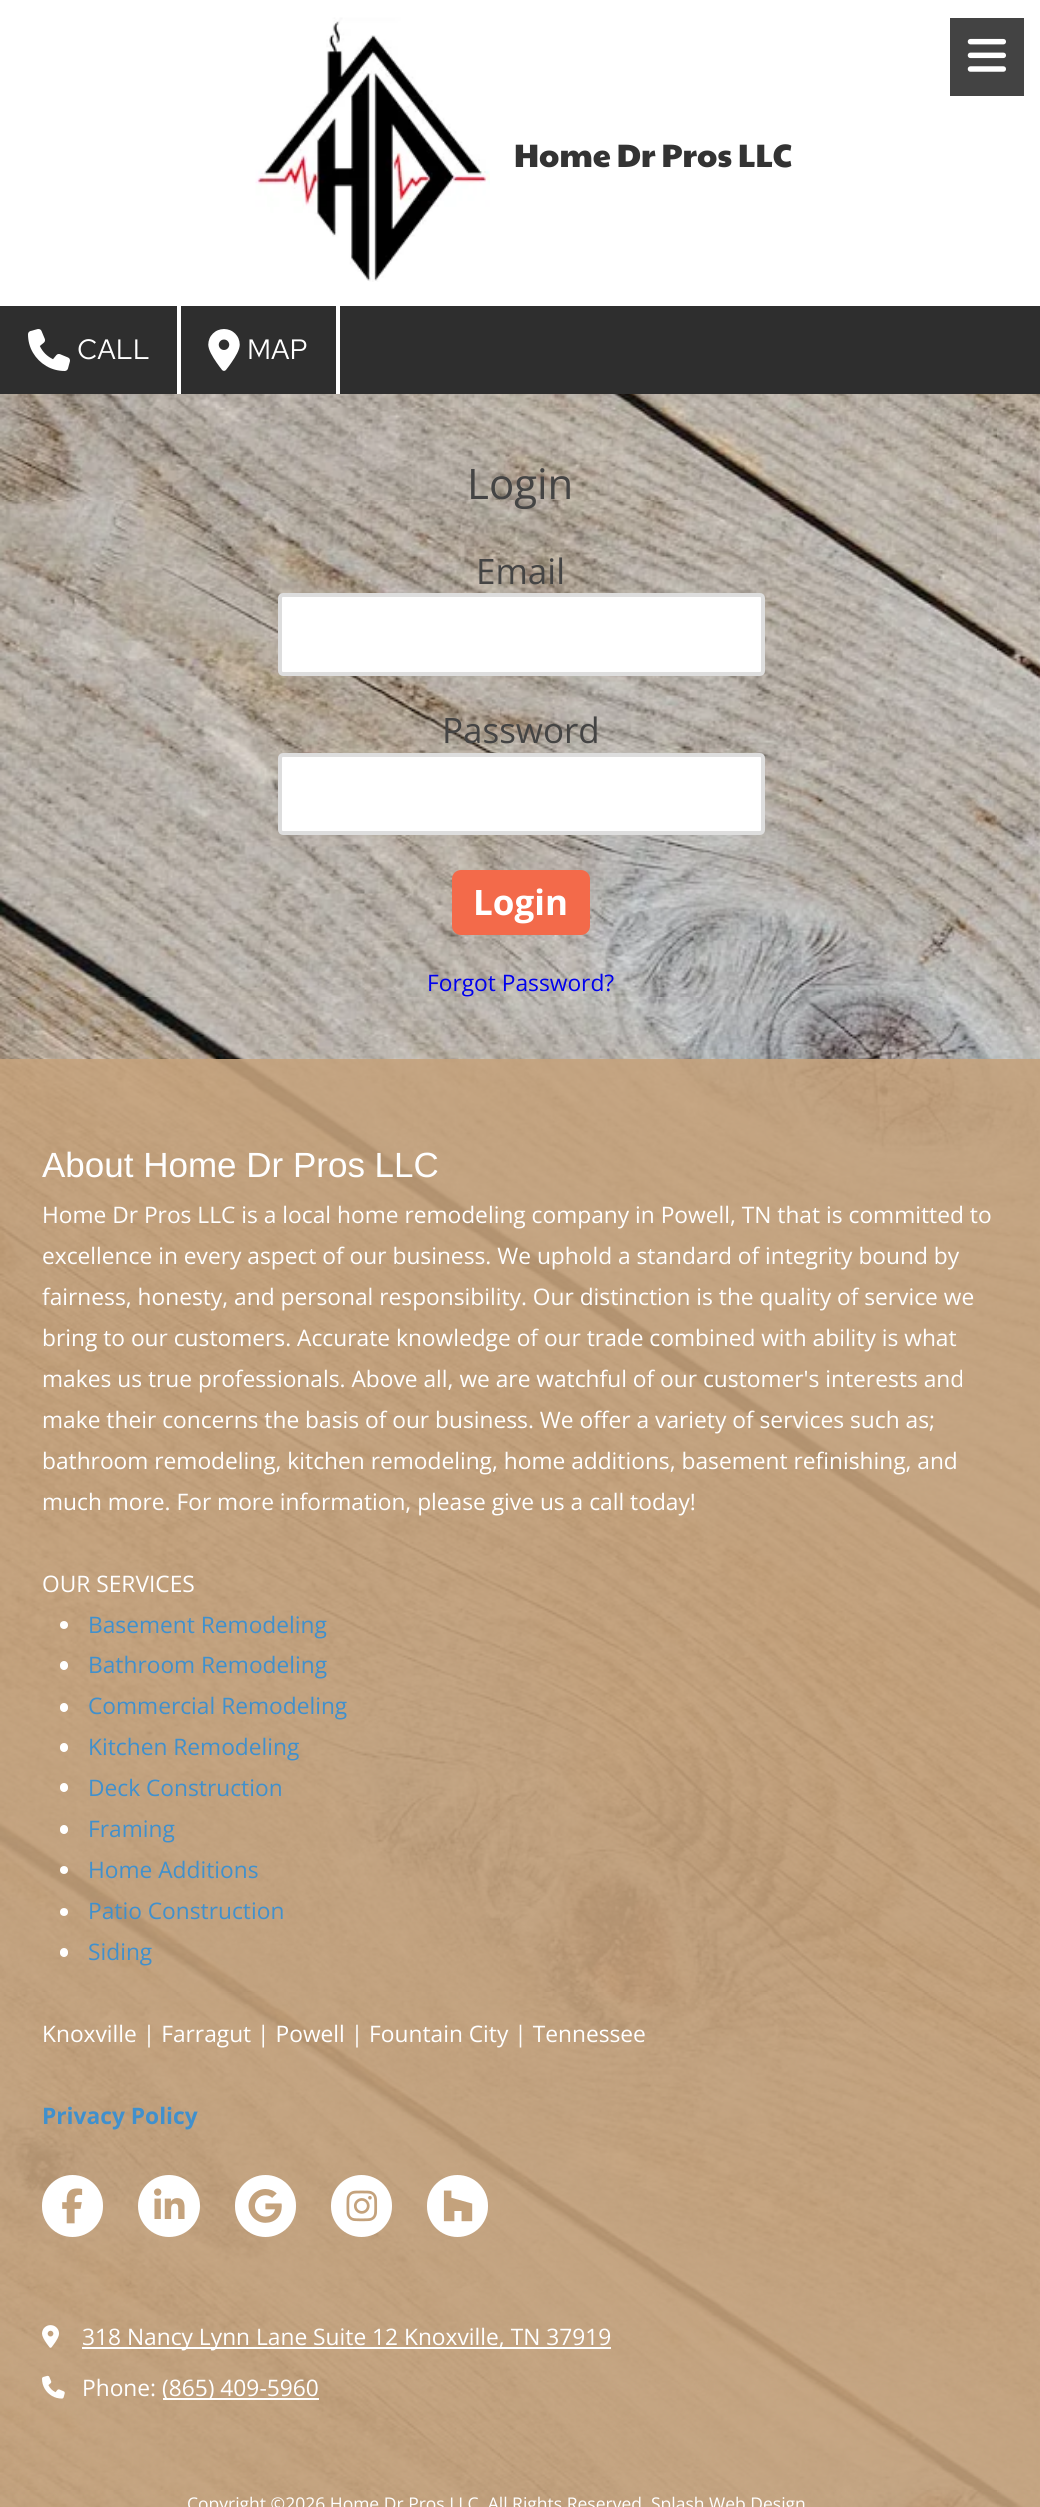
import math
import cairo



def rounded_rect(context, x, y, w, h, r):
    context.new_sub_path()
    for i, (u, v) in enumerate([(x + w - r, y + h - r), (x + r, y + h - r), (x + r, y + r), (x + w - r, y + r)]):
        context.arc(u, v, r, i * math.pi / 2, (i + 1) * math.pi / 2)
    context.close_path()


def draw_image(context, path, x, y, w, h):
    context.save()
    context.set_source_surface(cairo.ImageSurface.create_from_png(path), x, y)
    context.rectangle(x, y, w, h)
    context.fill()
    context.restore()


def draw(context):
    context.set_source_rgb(1, 1, 1)
    context.paint()
    context.set_source_rgb(67 / 255, 67 / 255, 67 / 255)
    context.rectangle(950, 18, 74, 78)
    context.fill()
    draw_image(context, "images/1.png", 967, 38, 39, 34)
    draw_image(context, "images/2.png", 255, 17, 235, 265)
    context.set_source_rgb(46 / 255, 46 / 255, 46 / 255)
    context.rectangle(0, 306, 1040, 88)
    context.fill()
    context.set_source_rgb(1, 1, 1)
    context.rectangle(177, 306, 4, 88)
    context.fill()
    draw_image(context, "images/3.png", 28, 329, 42, 42)
    context.rectangle(336, 306, 4, 88)
    context.fill()
    draw_image(context, "images/4.png", 208, 329, 32, 42)
    draw_image(context, "images/12.png", 0, 394, 1040, 2113)
    rounded_rect(context, 280, 595, 483, 79, 3)
    context.fill_preserve()
    context.set_source_rgb(221 / 255, 221 / 255, 221 / 255)
    context.set_line_width(4)
    context.stroke()
    context.set_source_rgb(1, 1, 1)
    rounded_rect(context, 280, 755, 483, 78, 3)
    context.fill_preserve()
    context.set_source_rgb(221 / 255, 221 / 255, 221 / 255)
    context.stroke()
    context.set_source_rgb(243 / 255, 106 / 255, 74 / 255)
    rounded_rect(context, 452, 870, 138, 65, 9)
    context.fill()
    context.set_source_rgba(196 / 255, 162 / 255, 124 / 255, 0.89)
    context.rectangle(0, 1059, 1040, 1448)
    context.fill()
    context.set_source_rgb(1, 1, 1)
    context.arc(64, 1625, 4, 0, 2 * math.pi)
    context.fill()
    rounded_rect(context, 60, 1661, 8, 9, 4)
    context.fill()
    rounded_rect(context, 60, 1703, 8, 9, 4)
    context.fill()
    rounded_rect(context, 60, 1743, 8, 9, 4)
    context.fill()
    rounded_rect(context, 60, 1783, 8, 9, 4)
    context.fill()
    rounded_rect(context, 60, 1825, 8, 9, 4)
    context.fill()
    context.arc(64, 1870, 4, 0, 2 * math.pi)
    context.fill()
    context.arc(64, 1912, 4, 0, 2 * math.pi)
    context.fill()
    rounded_rect(context, 60, 1948, 8, 9, 4)
    context.fill()
    rounded_rect(context, 42, 2175, 61, 62, 30.5)
    context.fill()
    draw_image(context, "images/5.png", 62, 2188, 21, 36)
    context.arc(169, 2206, 31, 0, 2 * math.pi)
    context.fill()
    draw_image(context, "images/6.png", 154, 2188, 31, 31)
    rounded_rect(context, 235, 2175, 61, 62, 30.5)
    context.fill()
    draw_image(context, "images/7.png", 248, 2189, 34, 34)
    rounded_rect(context, 331, 2175, 61, 62, 30.5)
    context.fill()
    draw_image(context, "images/8.png", 346, 2190, 32, 32)
    rounded_rect(context, 427, 2175, 61, 62, 30.5)
    context.fill()
    draw_image(context, "images/9.png", 443, 2190, 30, 32)
    draw_image(context, "images/10.png", 42, 2325, 17, 23)
    context.rectangle(82, 2347, 529, 2)
    context.fill()
    draw_image(context, "images/11.png", 42, 2375, 23, 24)
    context.rectangle(163, 2398, 156, 2)
    context.fill()
    context.select_font_face("Paytone One")
    context.set_font_size(32.4)
    context.set_source_rgb(51 / 255, 51 / 255, 51 / 255)
    context.move_to(514, 167)
    context.show_text("Home Dr Pros LLC")
    context.select_font_face("Red Hat Text")
    context.set_font_size(28)
    context.set_source_rgb(1, 1, 1)
    context.move_to(77, 359)
    context.show_text("CALL")
    context.move_to(247, 359)
    context.show_text("MAP")
    context.select_font_face("Open Sans")
    context.set_font_size(42)
    context.set_source_rgb(68 / 255, 68 / 255, 68 / 255)
    context.move_to(467, 499)
    context.show_text("Login")
    context.set_font_size(35)
    context.move_to(476, 584)
    context.show_text("Email")
    context.move_to(442, 743)
    context.show_text("Password")
    context.select_font_face("Open Sans", cairo.FontSlant.NORMAL, cairo.FontWeight.BOLD)
    context.set_source_rgb(1, 1, 1)
    context.move_to(473, 915)
    context.show_text("Login")
    context.select_font_face("Open Sans")
    context.set_font_size(22.75)
    context.set_source_rgb(0, 0, 238 / 255)
    context.move_to(427, 991)
    context.show_text("Forgot Password?")
    context.select_font_face("Liberation Sans")
    context.set_font_size(35)
    context.set_source_rgb(1, 1, 1)
    context.move_to(42, 1177)
    context.show_text("About Home Dr Pros LLC")
    context.select_font_face("Open Sans")
    context.set_font_size(22.75)
    context.move_to(42, 1223)
    context.show_text("Home Dr Pros LLC is a local home remodeling company in Powell, TN that is committed to")
    context.move_to(42, 1264)
    context.show_text("excellence in every aspect of our business. We uphold a standard of integrity bound by")
    context.move_to(42, 1305)
    context.show_text("fairness, honesty, and personal responsibility. Our distinction is the quality of service we")
    context.move_to(42, 1346)
    context.show_text("bring to our customers. Accurate knowledge of our trade combined with ability is what")
    context.move_to(42, 1387)
    context.show_text("makes us true professionals. Above all, we are watchful of our customer's interests and")
    context.move_to(42, 1428)
    context.show_text("make their concerns the basis of our business. We offer a variety of services such as;")
    context.move_to(42, 1469)
    context.show_text("bathroom remodeling, kitchen remodeling, home additions, basement refinishing, and")
    context.move_to(42, 1510)
    context.show_text("much more. For more information, please give us a call today!")
    context.move_to(42, 1592)
    context.show_text("OUR SERVICES")
    context.set_source_rgb(64 / 255, 144 / 255, 205 / 255)
    context.move_to(88, 1633)
    context.show_text("Basement Remodeling")
    context.move_to(88, 1673)
    context.show_text("Bathroom Remodeling")
    context.move_to(88, 1714)
    context.show_text("Commercial Remodeling")
    context.move_to(88, 1755)
    context.show_text("Kitchen Remodeling")
    context.move_to(88, 1796)
    context.show_text("Deck Construction")
    context.move_to(88, 1837)
    context.show_text("Framing")
    context.move_to(88, 1878)
    context.show_text("Home Additions")
    context.move_to(88, 1919)
    context.show_text("Patio Construction")
    context.move_to(88, 1960)
    context.show_text("Siding")
    context.set_source_rgb(1, 1, 1)
    context.move_to(42, 2042)
    context.show_text("Knoxville | Farragut | Powell | Fountain City | Tennessee")
    context.select_font_face("Open Sans", cairo.FontSlant.NORMAL, cairo.FontWeight.BOLD)
    context.set_source_rgb(64 / 255, 144 / 255, 205 / 255)
    context.move_to(42, 2124)
    context.show_text("Privacy Policy")
    context.select_font_face("Open Sans")
    context.set_source_rgb(1, 1, 1)
    context.move_to(82, 2345)
    context.show_text("318 Nancy Lynn Lane Suite 12 Knoxville, TN 37919")
    context.move_to(82, 2396)
    context.show_text("Phone:")
    context.move_to(162, 2396)
    context.show_text("(865) 409-5960")
    context.set_font_size(17.5)
    context.move_to(187, 2510)
    context.show_text("Copyright ©2026 Home Dr Pros LLC. All Rights Reserved")
    context.move_to(651, 2510)
    context.show_text("Splash Web Design")


surface = cairo.ImageSurface(cairo.Format.RGB24, 1040, 2507)
context = cairo.Context(surface)
options = cairo.FontOptions()
options.set_hint_metrics(cairo.HintMetrics.OFF)
options.set_hint_style(cairo.HintStyle.NONE)
context.set_font_options(options)
context.set_miter_limit(4)
draw(context)
surface.write_to_png("out.png")
